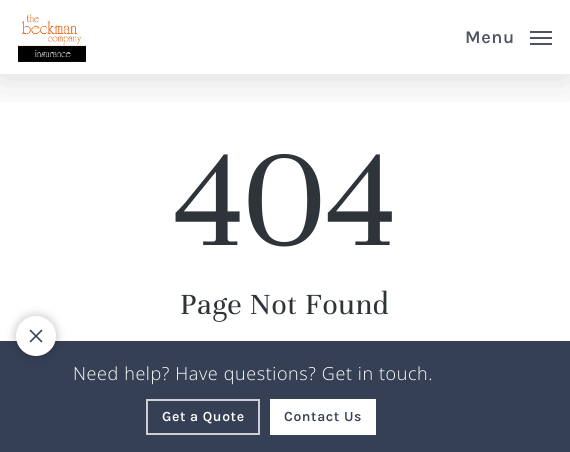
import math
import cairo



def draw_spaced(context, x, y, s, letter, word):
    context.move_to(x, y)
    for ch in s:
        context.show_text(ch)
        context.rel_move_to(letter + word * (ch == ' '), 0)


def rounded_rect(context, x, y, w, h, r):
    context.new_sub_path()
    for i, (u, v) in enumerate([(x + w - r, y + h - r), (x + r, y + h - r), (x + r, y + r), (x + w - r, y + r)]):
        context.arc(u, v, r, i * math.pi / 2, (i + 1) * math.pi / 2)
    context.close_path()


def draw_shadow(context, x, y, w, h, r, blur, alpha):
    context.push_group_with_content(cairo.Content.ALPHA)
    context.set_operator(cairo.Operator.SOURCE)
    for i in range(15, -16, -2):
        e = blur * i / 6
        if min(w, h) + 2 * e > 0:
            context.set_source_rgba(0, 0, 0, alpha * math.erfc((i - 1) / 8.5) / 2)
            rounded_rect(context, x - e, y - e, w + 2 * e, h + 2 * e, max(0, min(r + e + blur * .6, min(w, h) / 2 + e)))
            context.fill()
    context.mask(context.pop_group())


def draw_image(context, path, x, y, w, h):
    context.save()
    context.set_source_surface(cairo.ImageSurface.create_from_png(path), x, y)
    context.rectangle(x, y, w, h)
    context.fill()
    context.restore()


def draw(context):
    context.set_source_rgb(1, 1, 1)
    context.paint()
    context.save()
    context.rectangle(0, 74, 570, 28)
    context.clip()
    context.set_source_rgb(0, 0, 0)
    draw_shadow(context, 0, 3, 570, 74, 0, 22.5, 0.15)
    context.restore()
    draw_image(context, "images/1.png", 18, 13, 68, 49)
    context.set_source_rgb(78 / 255, 85 / 255, 97 / 255)
    context.rectangle(530, 31, 22, 2)
    context.fill()
    context.rectangle(530, 43, 22, 2)
    context.fill()
    context.rectangle(530, 37, 22, 2)
    context.fill()
    context.set_source_rgb(53 / 255, 64 / 255, 85 / 255)
    context.rectangle(0, 341, 570, 111)
    context.fill()
    context.set_source_rgb(0, 0, 0)
    draw_shadow(context, 16, 316, 40, 40, 20, 5, 0.25)
    context.set_source_rgb(1, 1, 1)
    context.arc(36, 336, 20, 0, 2 * math.pi)
    context.fill()
    draw_image(context, "images/2.png", 29, 329, 14, 14)
    context.rectangle(147, 400, 112, 34)
    context.set_source_rgb(205 / 255, 207 / 255, 213 / 255)
    context.stroke()
    context.set_source_rgb(1, 1, 1)
    context.rectangle(270, 399, 106, 36)
    context.fill()
    context.select_font_face("Karla SemiBold")
    context.set_font_size(18)
    context.set_source_rgb(78 / 255, 85 / 255, 97 / 255)
    draw_spaced(context, 465, 43, "Menu", 0.6, 0)
    context.select_font_face("Unna")
    context.set_font_size(150)
    context.set_source_rgb(46 / 255, 52 / 255, 58 / 255)
    draw_spaced(context, 173, 245, "404", 0.5, 0)
    context.set_font_size(32)
    draw_spaced(context, 180, 314, "Page Not Found", 0.5, 0)
    context.select_font_face("Open Sans Light")
    context.set_font_size(18)
    context.set_source_rgb(1, 1, 1)
    draw_spaced(context, 73, 380, "Need help? Have questions? Get in touch.", 0.6, 0)
    context.select_font_face("Karla SemiBold")
    context.set_font_size(14)
    draw_spaced(context, 162, 421, "Get a Quote", 0.6, 0)
    context.set_source_rgb(53 / 255, 64 / 255, 85 / 255)
    draw_spaced(context, 284, 421, "Contact Us", 0.6, 0)


surface = cairo.ImageSurface(cairo.Format.RGB24, 570, 452)
context = cairo.Context(surface)
options = cairo.FontOptions()
options.set_hint_metrics(cairo.HintMetrics.OFF)
options.set_hint_style(cairo.HintStyle.NONE)
context.set_font_options(options)
context.set_miter_limit(4)
draw(context)
surface.write_to_png("out.png")
